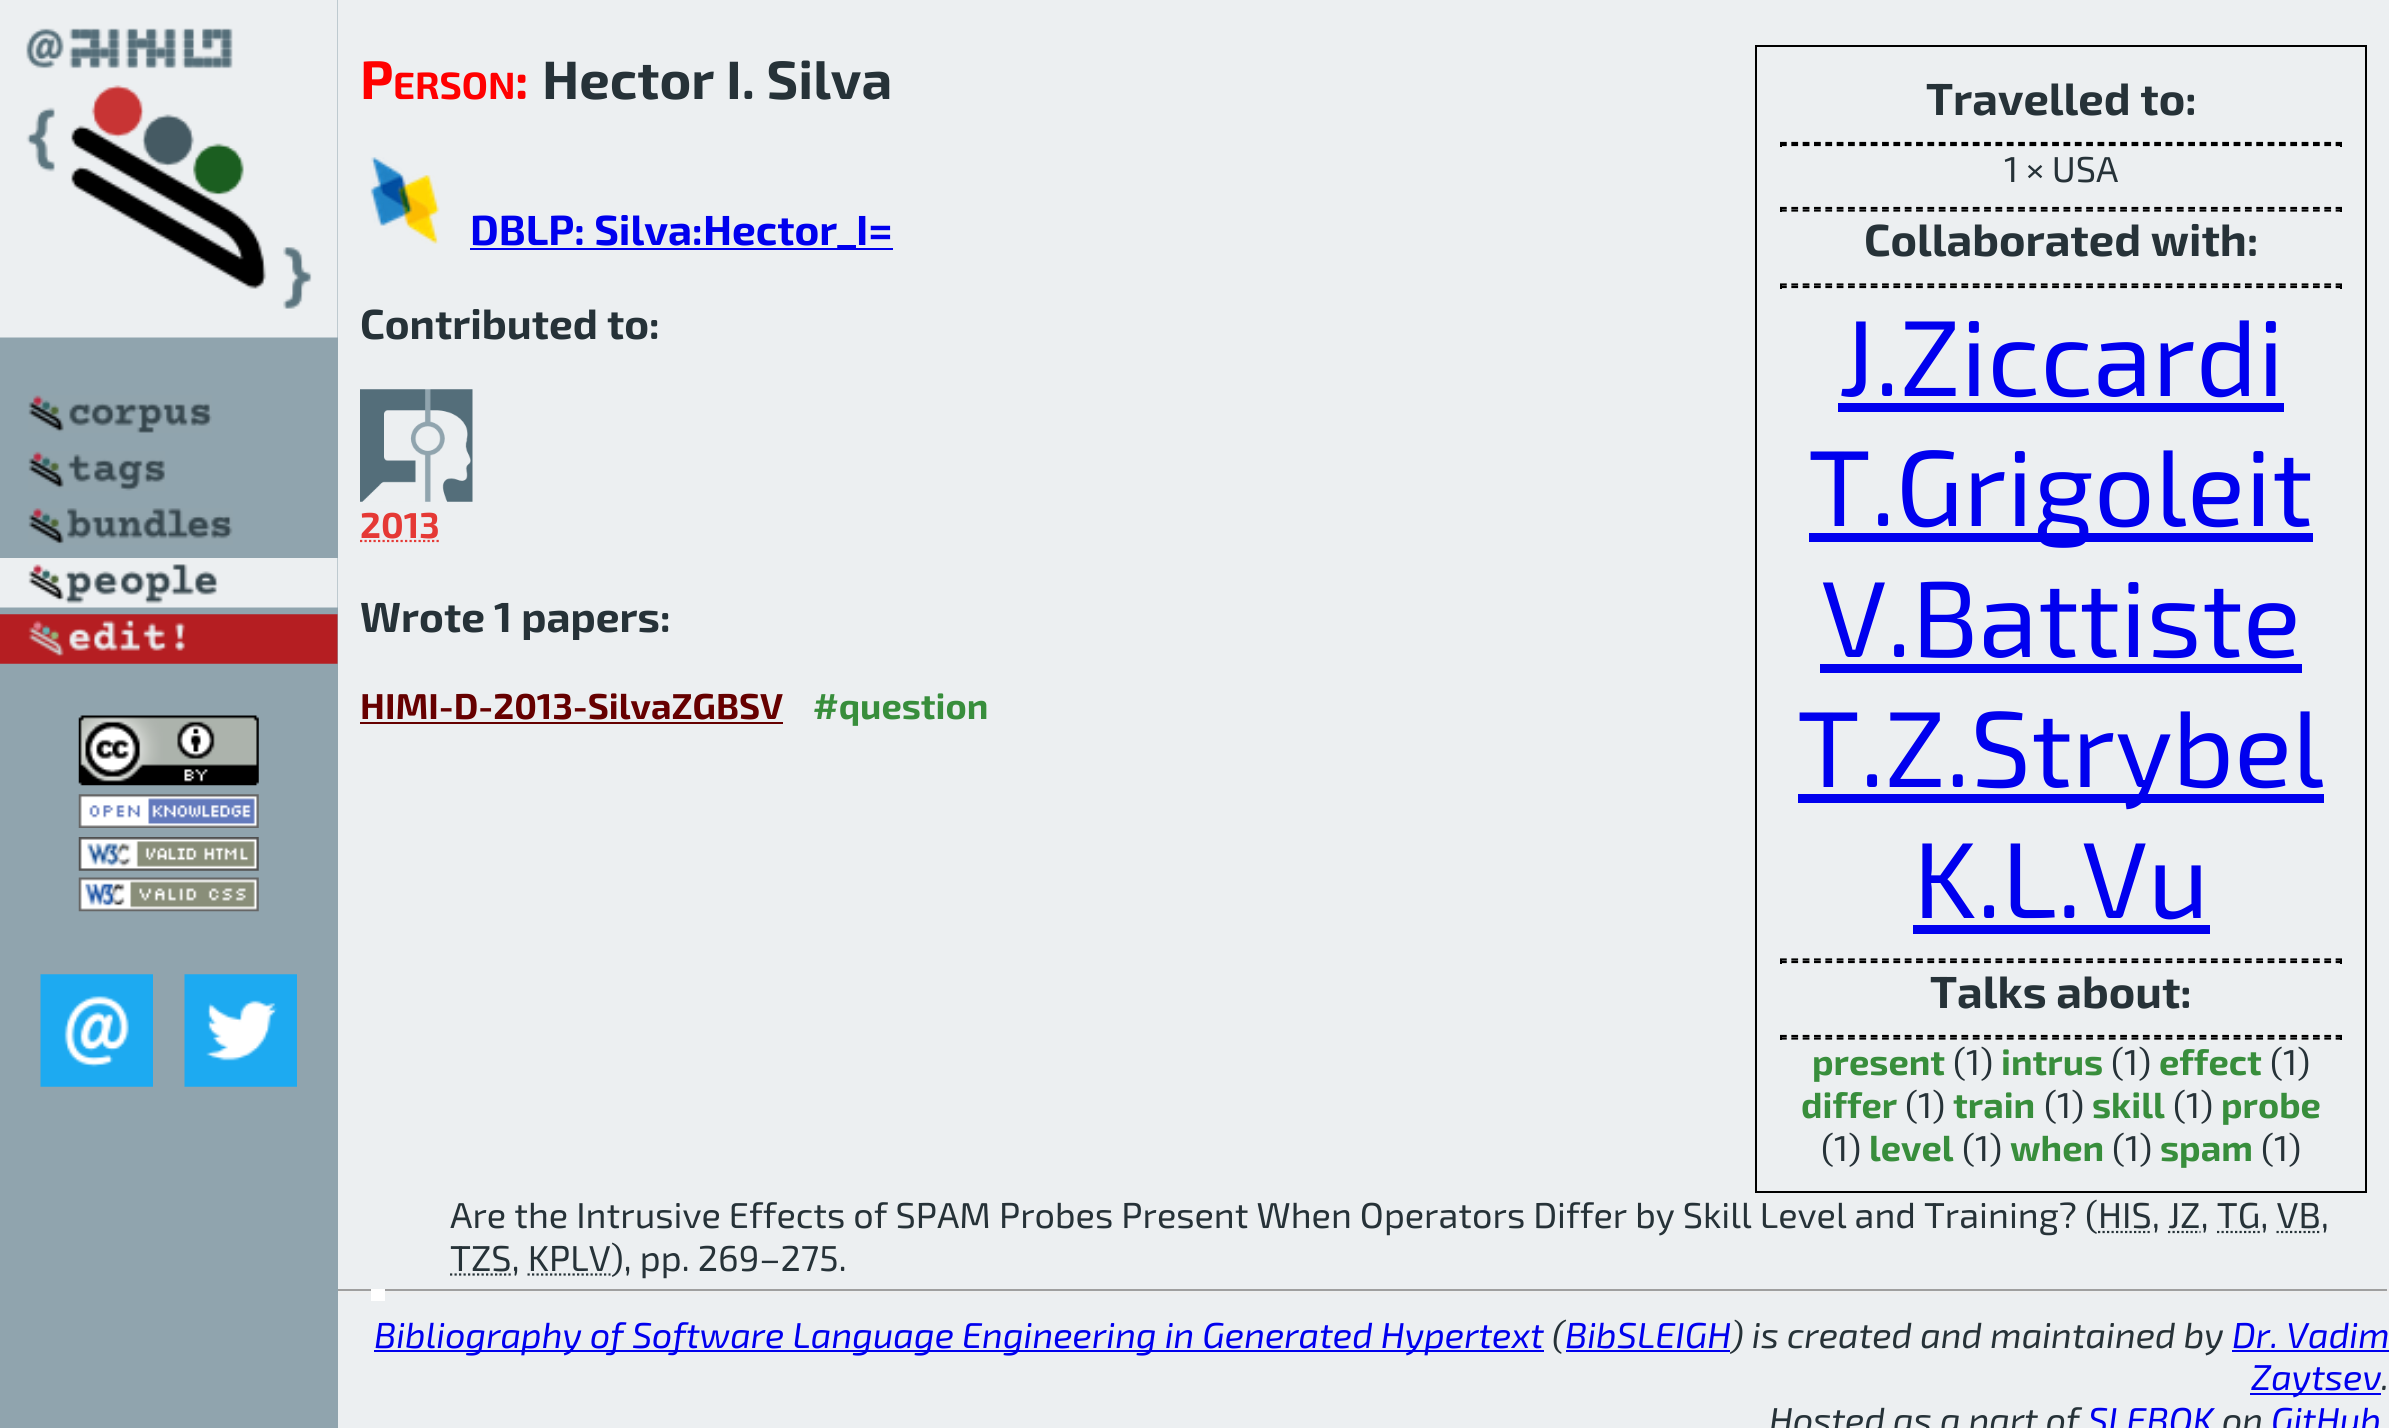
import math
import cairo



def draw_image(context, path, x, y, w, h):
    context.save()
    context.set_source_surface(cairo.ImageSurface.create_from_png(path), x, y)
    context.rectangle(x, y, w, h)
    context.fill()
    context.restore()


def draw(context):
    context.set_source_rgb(236 / 255, 239 / 255, 241 / 255)
    context.paint()
    context.set_source_rgb(144 / 255, 164 / 255, 174 / 255)
    context.rectangle(0, 0, 338, 1428)
    context.fill()
    draw_image(context, "images/1.png", 0, 0, 338, 338)
    draw_image(context, "images/2.png", 28, 395, 184, 38)
    draw_image(context, "images/3.png", 28, 451, 137, 40)
    draw_image(context, "images/4.png", 28, 508, 205, 37)
    draw_image(context, "images/5.png", 0, 558, 338, 50)
    draw_image(context, "images/6.png", 0, 614, 338, 50)
    draw_image(context, "images/7.png", 78, 715, 181, 71)
    draw_image(context, "images/8.png", 78, 794, 181, 34)
    draw_image(context, "images/9.png", 78, 837, 181, 34)
    draw_image(context, "images/10.png", 78, 877, 181, 35)
    draw_image(context, "images/11.png", 40, 974, 113, 113)
    draw_image(context, "images/12.png", 184, 974, 113, 113)
    context.rectangle(1756, 46, 610, 1146)
    context.set_source_rgb(0, 0, 0)
    context.stroke()
    context.new_path()
    context.move_to(1780, 143)
    context.line_to(2342, 143)
    context.set_line_width(2.2)
    context.set_dash([6.75, 4.59])
    context.stroke()
    context.rectangle(2340, 142, 2, 5)
    context.fill()
    context.new_path()
    context.move_to(1780, 145)
    context.line_to(2342, 145)
    context.stroke()
    context.rectangle(1780, 142, 2, 5)
    context.fill()
    context.new_path()
    context.move_to(1780, 208)
    context.line_to(2342, 208)
    context.stroke()
    context.rectangle(2340, 207, 2, 5)
    context.fill()
    context.new_path()
    context.move_to(1780, 210.5)
    context.line_to(2342, 210.5)
    context.stroke()
    context.rectangle(1780, 207, 2, 5)
    context.fill()
    context.new_path()
    context.move_to(1780, 284.5)
    context.line_to(2342, 284.5)
    context.stroke()
    context.rectangle(2340, 284, 2, 5)
    context.fill()
    context.new_path()
    context.move_to(1780, 287)
    context.line_to(2342, 287)
    context.stroke()
    context.rectangle(1780, 284, 2, 5)
    context.fill()
    context.set_source_rgb(0, 0, 238 / 255)
    context.rectangle(1838, 403, 446, 9)
    context.fill()
    context.rectangle(1809, 533, 504, 9)
    context.fill()
    context.rectangle(1820, 664, 482, 9)
    context.fill()
    context.rectangle(1798, 794, 526, 9)
    context.fill()
    context.rectangle(1913, 925, 297, 9)
    context.fill()
    context.new_path()
    context.move_to(1780, 959.5)
    context.line_to(2342, 959.5)
    context.set_source_rgb(0, 0, 0)
    context.stroke()
    context.rectangle(2340, 959, 2, 5)
    context.fill()
    context.new_path()
    context.move_to(1780, 962)
    context.line_to(2342, 962)
    context.stroke()
    context.rectangle(1780, 959, 2, 5)
    context.fill()
    context.new_path()
    context.move_to(1780, 1036)
    context.line_to(2342, 1036)
    context.stroke()
    context.rectangle(2340, 1035, 2, 5)
    context.fill()
    context.new_path()
    context.move_to(1780, 1038.5)
    context.line_to(2342, 1038.5)
    context.stroke()
    context.rectangle(1780, 1035, 2, 5)
    context.fill()
    draw_image(context, "images/13.png", 370, 157, 70, 87)
    context.set_source_rgb(0, 0, 238 / 255)
    context.rectangle(470, 248, 423, 2)
    context.fill()
    draw_image(context, "images/14.png", 360, 389, 113, 113)
    context.new_path()
    context.move_to(360, 541)
    context.line_to(439.5, 541)
    context.set_source_rgb(229 / 255, 57 / 255, 53 / 255)
    context.set_dash([2.25, 2.25])
    context.stroke()
    context.set_source_rgb(102 / 255, 0, 0)
    context.rectangle(360, 722, 423, 2)
    context.fill()
    context.new_path()
    context.move_to(2098, 1232)
    context.line_to(2151.5, 1232)
    context.set_source_rgb(38 / 255, 50 / 255, 56 / 255)
    context.stroke()
    context.new_path()
    context.move_to(2168, 1232)
    context.line_to(2200.5, 1232)
    context.stroke()
    context.new_path()
    context.move_to(2217, 1232)
    context.line_to(2260.5, 1232)
    context.stroke()
    context.new_path()
    context.move_to(2276.5, 1232)
    context.line_to(2321, 1232)
    context.stroke()
    context.new_path()
    context.move_to(450, 1274.5)
    context.line_to(511.5, 1274.5)
    context.stroke()
    context.new_path()
    context.move_to(527.5, 1274.5)
    context.line_to(610.5, 1274.5)
    context.stroke()
    context.set_source_rgb(159 / 255, 159 / 255, 159 / 255)
    context.rectangle(338, 1289, 2051, 2)
    context.fill()
    context.set_source_rgb(238 / 255, 238 / 255, 238 / 255)
    context.rectangle(2387, 1289, 2, 5)
    context.fill()
    context.rectangle(338, 1292, 2051, 2)
    context.fill()
    context.set_source_rgb(1, 1, 1)
    context.rectangle(371, 1289, 14, 12)
    context.fill()
    context.set_source_rgb(0, 0, 238 / 255)
    context.rectangle(374, 1350, 1170, 2)
    context.fill()
    context.rectangle(2232, 1350, 157, 2)
    context.fill()
    context.rectangle(2250, 1393, 131, 2)
    context.fill()
    context.select_font_face("Exo 2", cairo.FontSlant.NORMAL, cairo.FontWeight.BOLD)
    context.set_font_size(54)
    context.set_source_rgb(1, 0, 0)
    context.move_to(360, 99)
    context.show_text("P")
    context.set_font_size(38)
    context.move_to(393, 99)
    context.show_text("ERSON")
    context.set_font_size(54)
    context.move_to(515, 99)
    context.show_text(":")
    context.set_source_rgb(38 / 255, 50 / 255, 56 / 255)
    context.move_to(542, 99)
    context.show_text("Hector I. Silva")
    context.set_font_size(45)
    context.move_to(1926, 115)
    context.show_text("Travelled to:")
    context.select_font_face("Exo 2")
    context.set_font_size(36)
    context.move_to(2004, 182)
    context.show_text("1 × USA")
    context.select_font_face("Exo 2", cairo.FontSlant.NORMAL, cairo.FontWeight.BOLD)
    context.set_font_size(45)
    context.move_to(1864, 256)
    context.show_text("Collaborated with:")
    context.select_font_face("Exo 2")
    context.set_font_size(108)
    context.set_source_rgb(0, 0, 238 / 255)
    context.move_to(1838, 396)
    context.show_text("J.Ziccardi")
    context.move_to(1808, 526)
    context.show_text("T.Grigoleit")
    context.move_to(1821, 657)
    context.show_text("V.Battiste")
    context.move_to(1797, 787)
    context.show_text("T.Z.Strybel")
    context.move_to(1913, 918)
    context.show_text("K.L.Vu")
    context.select_font_face("Exo 2", cairo.FontSlant.NORMAL, cairo.FontWeight.BOLD)
    context.set_font_size(45)
    context.set_source_rgb(38 / 255, 50 / 255, 56 / 255)
    context.move_to(1930, 1008)
    context.show_text("Talks about:")
    context.set_font_size(36)
    context.set_source_rgb(56 / 255, 142 / 255, 60 / 255)
    context.move_to(1812, 1075)
    context.show_text("present")
    context.select_font_face("Exo 2")
    context.set_source_rgb(38 / 255, 50 / 255, 56 / 255)
    context.move_to(1953, 1075)
    context.show_text("(1)")
    context.select_font_face("Exo 2", cairo.FontSlant.NORMAL, cairo.FontWeight.BOLD)
    context.set_source_rgb(56 / 255, 142 / 255, 60 / 255)
    context.move_to(2001, 1075)
    context.show_text("intrus")
    context.select_font_face("Exo 2")
    context.set_source_rgb(38 / 255, 50 / 255, 56 / 255)
    context.move_to(2111, 1075)
    context.show_text("(1)")
    context.select_font_face("Exo 2", cairo.FontSlant.NORMAL, cairo.FontWeight.BOLD)
    context.set_source_rgb(56 / 255, 142 / 255, 60 / 255)
    context.move_to(2159, 1075)
    context.show_text("effect")
    context.select_font_face("Exo 2")
    context.set_source_rgb(38 / 255, 50 / 255, 56 / 255)
    context.move_to(2270, 1075)
    context.show_text("(1)")
    context.select_font_face("Exo 2", cairo.FontSlant.NORMAL, cairo.FontWeight.BOLD)
    context.set_source_rgb(56 / 255, 142 / 255, 60 / 255)
    context.move_to(1801, 1118)
    context.show_text("differ")
    context.select_font_face("Exo 2")
    context.set_source_rgb(38 / 255, 50 / 255, 56 / 255)
    context.move_to(1905, 1118)
    context.show_text("(1)")
    context.select_font_face("Exo 2", cairo.FontSlant.NORMAL, cairo.FontWeight.BOLD)
    context.set_source_rgb(56 / 255, 142 / 255, 60 / 255)
    context.move_to(1953, 1118)
    context.show_text("train")
    context.select_font_face("Exo 2")
    context.set_source_rgb(38 / 255, 50 / 255, 56 / 255)
    context.move_to(2044, 1118)
    context.show_text("(1)")
    context.select_font_face("Exo 2", cairo.FontSlant.NORMAL, cairo.FontWeight.BOLD)
    context.set_source_rgb(56 / 255, 142 / 255, 60 / 255)
    context.move_to(2092, 1118)
    context.show_text("skill")
    context.select_font_face("Exo 2")
    context.set_source_rgb(38 / 255, 50 / 255, 56 / 255)
    context.move_to(2173, 1118)
    context.show_text("(1)")
    context.select_font_face("Exo 2", cairo.FontSlant.NORMAL, cairo.FontWeight.BOLD)
    context.set_source_rgb(56 / 255, 142 / 255, 60 / 255)
    context.move_to(2221, 1118)
    context.show_text("probe")
    context.select_font_face("Exo 2")
    context.set_source_rgb(38 / 255, 50 / 255, 56 / 255)
    context.move_to(1821, 1161)
    context.show_text("(1)")
    context.select_font_face("Exo 2", cairo.FontSlant.NORMAL, cairo.FontWeight.BOLD)
    context.set_source_rgb(56 / 255, 142 / 255, 60 / 255)
    context.move_to(1869, 1161)
    context.show_text("level")
    context.select_font_face("Exo 2")
    context.set_source_rgb(38 / 255, 50 / 255, 56 / 255)
    context.move_to(1962, 1161)
    context.show_text("(1)")
    context.select_font_face("Exo 2", cairo.FontSlant.NORMAL, cairo.FontWeight.BOLD)
    context.set_source_rgb(56 / 255, 142 / 255, 60 / 255)
    context.move_to(2010, 1161)
    context.show_text("when")
    context.select_font_face("Exo 2")
    context.set_source_rgb(38 / 255, 50 / 255, 56 / 255)
    context.move_to(2112, 1161)
    context.show_text("(1)")
    context.select_font_face("Exo 2", cairo.FontSlant.NORMAL, cairo.FontWeight.BOLD)
    context.set_source_rgb(56 / 255, 142 / 255, 60 / 255)
    context.move_to(2160, 1161)
    context.show_text("spam")
    context.select_font_face("Exo 2")
    context.set_source_rgb(38 / 255, 50 / 255, 56 / 255)
    context.move_to(2261, 1161)
    context.show_text("(1)")
    context.select_font_face("Exo 2", cairo.FontSlant.NORMAL, cairo.FontWeight.BOLD)
    context.set_font_size(42.1)
    context.set_source_rgb(0, 0, 238 / 255)
    context.move_to(470, 245)
    context.show_text("DBLP: Silva:Hector_I=")
    context.set_source_rgb(38 / 255, 50 / 255, 56 / 255)
    context.move_to(360, 339)
    context.show_text("Contributed to:")
    context.set_font_size(36)
    context.set_source_rgb(229 / 255, 57 / 255, 53 / 255)
    context.move_to(360, 538)
    context.show_text("2013")
    context.set_font_size(42.1)
    context.set_source_rgb(38 / 255, 50 / 255, 56 / 255)
    context.move_to(360, 632)
    context.show_text("Wrote 1 papers:")
    context.set_font_size(36)
    context.set_source_rgb(102 / 255, 0, 0)
    context.move_to(360, 719)
    context.show_text("HIMI-D-2013-SilvaZGBSV")
    context.set_source_rgb(56 / 255, 142 / 255, 60 / 255)
    context.move_to(813, 719)
    context.show_text("#question")
    context.select_font_face("Exo 2")
    context.set_source_rgb(38 / 255, 50 / 255, 56 / 255)
    context.move_to(450, 1228)
    context.show_text("Are the Intrusive Effects of SPAM Probes Present When Operators Differ by Skill Level and Training? (HIS, JZ, TG, VB,")
    context.move_to(450, 1271)
    context.show_text("TZS, KPLV), pp. 269–275.")
    context.select_font_face("Exo 2", cairo.FontSlant.ITALIC)
    context.set_source_rgb(0, 0, 238 / 255)
    context.move_to(374, 1348)
    context.show_text("Bibliography of Software Language Engineering in Generated Hypertext")
    context.set_source_rgb(38 / 255, 50 / 255, 56 / 255)
    context.move_to(1552, 1348)
    context.show_text("(")
    context.set_source_rgb(0, 0, 238 / 255)
    context.move_to(1565, 1348)
    context.show_text("BibSLEIGH")
    context.set_source_rgb(38 / 255, 50 / 255, 56 / 255)
    context.move_to(1731, 1348)
    context.show_text(") is created and maintained by")
    context.set_source_rgb(0, 0, 238 / 255)
    context.rectangle(1566, 1350, 164, 2)
    context.fill()
    context.move_to(2232, 1348)
    context.show_text("Dr. Vadim")
    context.move_to(2251, 1390)
    context.show_text("Zaytsev")
    context.set_source_rgb(38 / 255, 50 / 255, 56 / 255)
    context.move_to(2381, 1390)
    context.show_text(".")
    context.move_to(1769, 1433)
    context.show_text("Hosted as a part of")
    context.set_source_rgb(0, 0, 238 / 255)
    context.move_to(2088, 1433)
    context.show_text("SLEBOK")
    context.set_source_rgb(38 / 255, 50 / 255, 56 / 255)
    context.move_to(2222, 1433)
    context.show_text("on")
    context.set_source_rgb(0, 0, 238 / 255)
    context.move_to(2271, 1433)
    context.show_text("GitHub")


surface = cairo.ImageSurface(cairo.Format.RGB24, 2389, 1428)
context = cairo.Context(surface)
options = cairo.FontOptions()
options.set_hint_metrics(cairo.HintMetrics.OFF)
options.set_hint_style(cairo.HintStyle.NONE)
context.set_font_options(options)
context.set_miter_limit(4)
draw(context)
surface.write_to_png("out.png")
